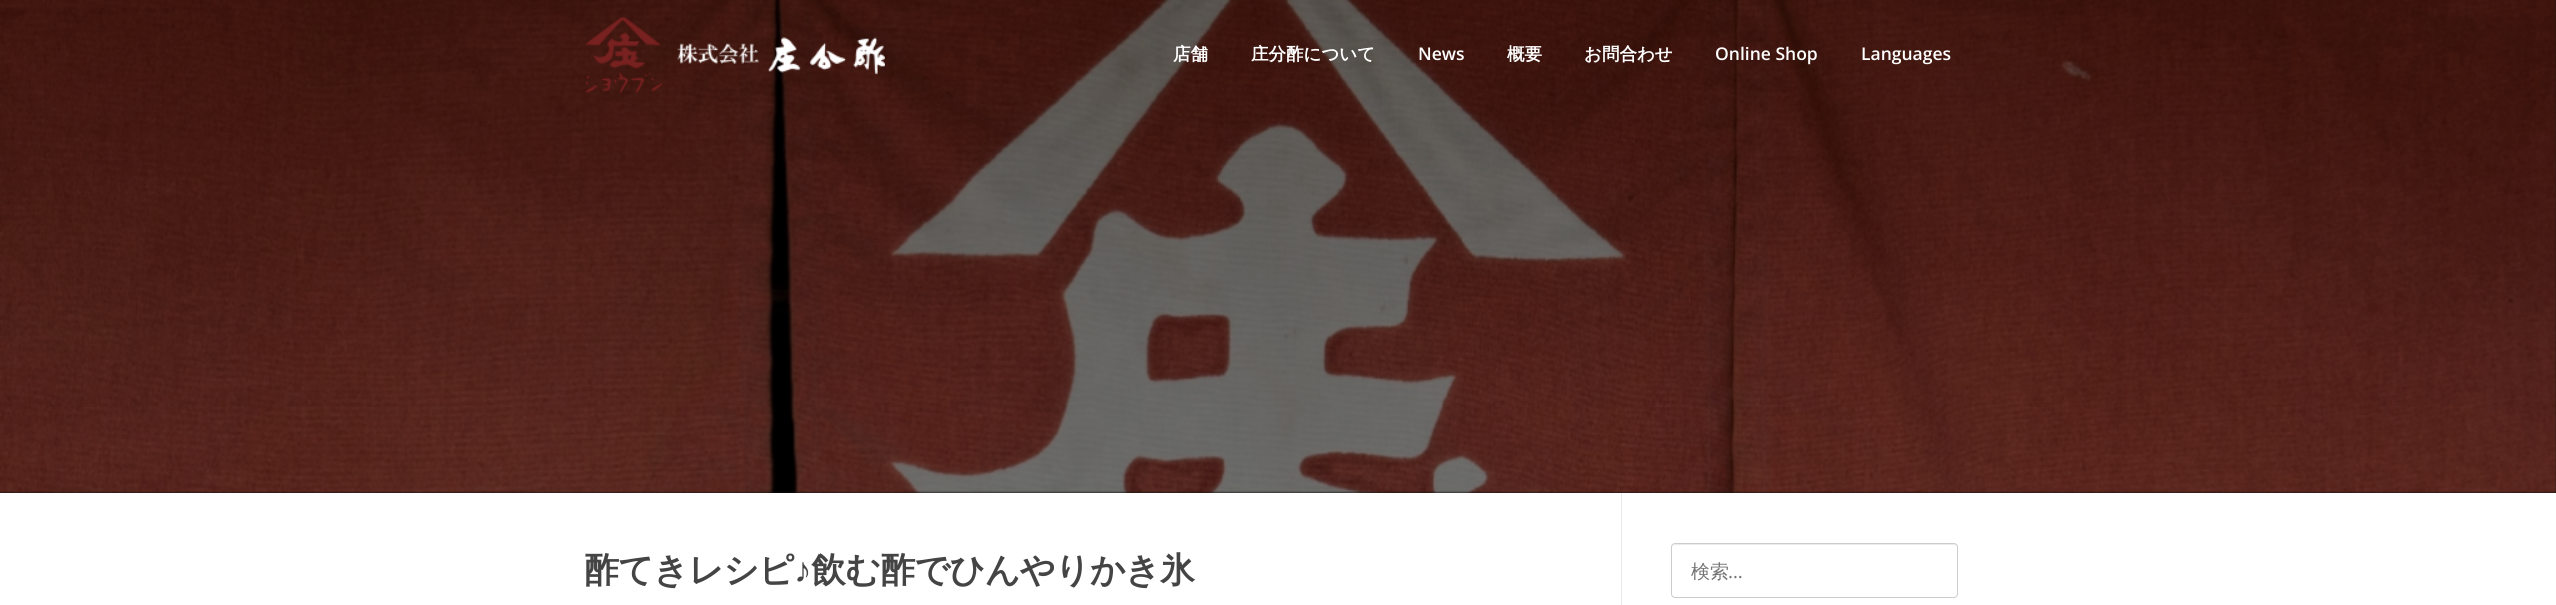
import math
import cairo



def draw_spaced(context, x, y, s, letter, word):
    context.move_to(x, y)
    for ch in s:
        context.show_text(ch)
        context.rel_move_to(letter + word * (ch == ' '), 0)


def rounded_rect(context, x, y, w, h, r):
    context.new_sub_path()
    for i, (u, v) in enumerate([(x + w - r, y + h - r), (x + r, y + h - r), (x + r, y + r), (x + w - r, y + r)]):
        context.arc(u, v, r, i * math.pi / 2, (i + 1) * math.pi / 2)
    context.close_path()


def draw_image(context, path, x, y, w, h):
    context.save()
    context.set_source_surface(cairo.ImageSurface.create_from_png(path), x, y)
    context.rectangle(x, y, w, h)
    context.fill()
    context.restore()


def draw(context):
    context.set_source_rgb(1, 1, 1)
    context.paint()
    context.set_source_rgb(19 / 255, 19 / 255, 19 / 255)
    context.rectangle(0, 0, 2556, 493)
    context.fill()
    draw_image(context, "images/1.png", 0, 0, 2556, 493)
    draw_image(context, "images/2.png", 585, 17, 300, 76)
    context.set_source_rgb(233 / 255, 233 / 255, 233 / 255)
    context.rectangle(1621, 493, 1, 112)
    context.fill()
    context.set_source_rgb(235 / 255, 235 / 255, 235 / 255)
    context.new_path()
    context.move_to(1675, 545)
    context.line_to(1954, 545)
    context.line_to(1956, 546)
    context.line_to(1956, 548)
    context.line_to(1956, 546)
    context.curve_to(1956, 545, 1955, 544, 1954, 544)
    context.line_to(1676, 544)
    context.curve_to(1674, 544, 1673, 545, 1673, 546)
    context.close_path()
    context.fill()
    rounded_rect(context, 1671.5, 543.5, 286, 54, 3.5)
    context.set_source_rgb(204 / 255, 204 / 255, 204 / 255)
    context.set_line_width(1)
    context.stroke()
    context.select_font_face("WenQuanYi Zen Hei", cairo.FontSlant.NORMAL, cairo.FontWeight.BOLD)
    context.set_font_size(17.5)
    context.set_source_rgb(1, 1, 1)
    context.move_to(1173, 60)
    context.show_text("店舗")
    context.move_to(1251, 60)
    context.show_text("庄分酢について")
    context.select_font_face("Open Sans SemiBold")
    context.move_to(1418, 60)
    context.show_text("News")
    context.select_font_face("WenQuanYi Zen Hei", cairo.FontSlant.NORMAL, cairo.FontWeight.BOLD)
    context.move_to(1507, 60)
    context.show_text("概要")
    context.move_to(1584, 60)
    context.show_text("お問合わせ")
    context.select_font_face("Open Sans SemiBold")
    context.move_to(1715, 60)
    context.show_text("Online Shop")
    context.move_to(1861, 60)
    context.show_text("Languages")
    context.select_font_face("WenQuanYi Zen Hei", cairo.FontSlant.NORMAL, cairo.FontWeight.BOLD)
    context.set_font_size(35)
    context.set_source_rgb(68 / 255, 68 / 255, 68 / 255)
    draw_spaced(context, 584, 582, "酢てきレシピ", -0.75, 0)
    context.select_font_face("Liberation Sans", cairo.FontSlant.NORMAL, cairo.FontWeight.BOLD)
    draw_spaced(context, 794, 582, "♪", -0.75, 0)
    context.select_font_face("WenQuanYi Zen Hei", cairo.FontSlant.NORMAL, cairo.FontWeight.BOLD)
    draw_spaced(context, 811, 582, "飲む酢でひんやりかき氷", -0.75, 0)
    context.select_font_face("WenQuanYi Zen Hei Medium")
    context.set_font_size(19)
    context.set_source_rgb(117 / 255, 117 / 255, 117 / 255)
    context.move_to(1691, 578)
    context.show_text("検索")
    context.select_font_face("Open Sans")
    context.move_to(1728, 578)
    context.show_text("…")


surface = cairo.ImageSurface(cairo.Format.RGB24, 2556, 605)
context = cairo.Context(surface)
options = cairo.FontOptions()
options.set_hint_metrics(cairo.HintMetrics.OFF)
options.set_hint_style(cairo.HintStyle.NONE)
context.set_font_options(options)
context.set_miter_limit(4)
draw(context)
surface.write_to_png("out.png")
